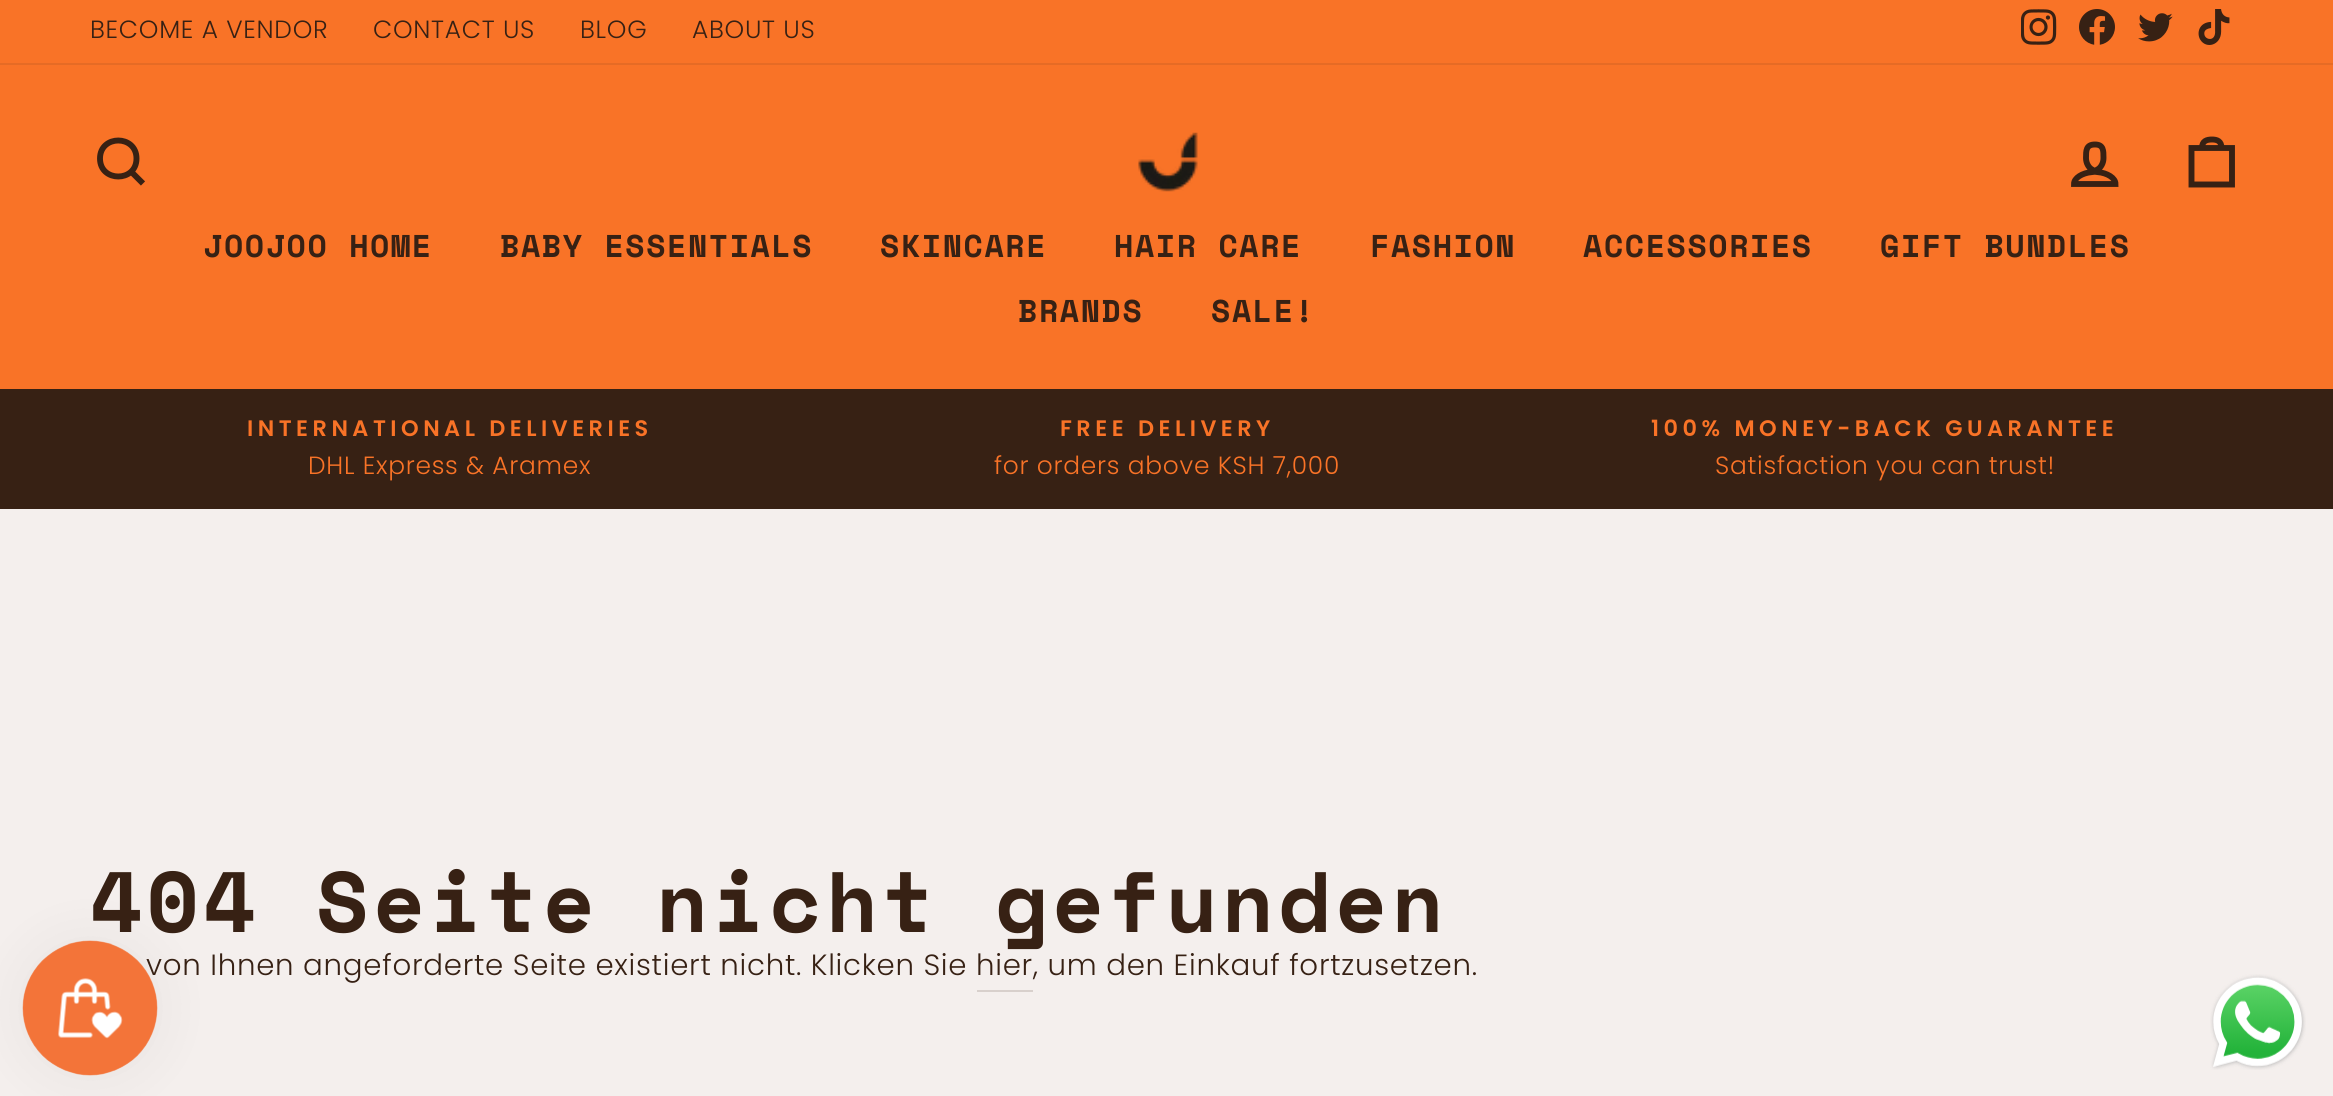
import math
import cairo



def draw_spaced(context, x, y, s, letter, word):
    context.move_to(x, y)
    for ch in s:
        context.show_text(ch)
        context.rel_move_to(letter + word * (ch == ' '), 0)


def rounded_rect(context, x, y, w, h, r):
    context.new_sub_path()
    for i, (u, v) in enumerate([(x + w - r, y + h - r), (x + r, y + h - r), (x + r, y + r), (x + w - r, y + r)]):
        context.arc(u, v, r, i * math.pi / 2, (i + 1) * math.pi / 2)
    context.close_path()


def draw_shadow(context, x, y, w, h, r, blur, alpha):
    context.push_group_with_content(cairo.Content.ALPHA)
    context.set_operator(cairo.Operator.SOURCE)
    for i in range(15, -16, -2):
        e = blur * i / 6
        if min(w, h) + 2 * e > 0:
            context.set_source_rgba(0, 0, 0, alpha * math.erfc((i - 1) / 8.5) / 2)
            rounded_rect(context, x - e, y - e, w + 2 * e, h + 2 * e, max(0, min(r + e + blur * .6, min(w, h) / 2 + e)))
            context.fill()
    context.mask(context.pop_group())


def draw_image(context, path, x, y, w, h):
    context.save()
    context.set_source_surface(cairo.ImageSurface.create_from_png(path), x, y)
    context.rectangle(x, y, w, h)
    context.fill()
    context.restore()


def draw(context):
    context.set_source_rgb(244 / 255, 239 / 255, 237 / 255)
    context.paint()
    context.set_source_rgb(249 / 255, 115 / 255, 39 / 255)
    context.rectangle(0, 0, 2333, 63)
    context.fill()
    draw_image(context, "images/1.png", 2021, 9, 36, 36)
    draw_image(context, "images/2.png", 2079, 9, 36, 36)
    draw_image(context, "images/3.png", 2138, 13, 35, 29)
    draw_image(context, "images/4.png", 2198, 9, 32, 36)
    context.rectangle(0, 65, 2333, 324)
    context.fill()
    context.set_source_rgb(230 / 255, 107 / 255, 37 / 255)
    context.rectangle(0, 63, 2333, 2)
    context.fill()
    context.new_path()
    context.move_to(136.5, 158.5)
    context.curve_to(136.5, 182.5, 100, 182.5, 100, 158.5)
    context.curve_to(100, 134.5, 136.5, 134.5, 136.5, 158.5)
    context.close_path()
    context.move_to(143, 183.5)
    context.line_to(131.5, 172)
    context.set_source_rgb(55 / 255, 33 / 255, 20 / 255)
    context.set_line_width(5.9)
    context.stroke()
    draw_image(context, "images/5.png", 1138, 132, 60, 60)
    context.new_path()
    context.move_to(2097.5, 172)
    context.line_to(2097.5, 169.5)
    context.curve_to(2101, 167.5, 2103.5, 163, 2103.5, 158)
    context.curve_to(2103.5, 150.5, 2103.5, 144.5, 2095, 144.5)
    context.curve_to(2086, 144.5, 2086, 150.5, 2086, 158)
    context.curve_to(2086, 163, 2088.5, 167.5, 2092, 169.5)
    context.line_to(2092, 172)
    context.curve_to(2082, 173, 2074, 178, 2074, 184)
    context.line_to(2115.5, 184)
    context.curve_to(2115.5, 178, 2107.5, 173, 2097.5, 172)
    context.close_path()
    context.stroke()
    context.new_path()
    context.move_to(2191.5, 148)
    context.line_to(2232, 148)
    context.line_to(2232, 184.5)
    context.line_to(2191.5, 184.5)
    context.close_path()
    context.move_to(2202, 148)
    context.curve_to(2202, 141, 2206.5, 139.5, 2212, 139.5)
    context.curve_to(2217, 139.5, 2221.5, 141, 2221.5, 148)
    context.stroke()
    context.rectangle(0, 389, 2333, 120)
    context.fill()
    context.set_source_rgb(216 / 255, 208 / 255, 204 / 255)
    context.rectangle(977, 990, 56, 2)
    context.fill()
    context.set_source_rgb(0, 0, 0)
    draw_shadow(context, 23, 941, 135, 135, 67.5, 28, 0.05)
    draw_image(context, "images/7.png", 2210, 974, 96, 96)
    context.select_font_face("Poppins Light")
    context.set_font_size(24.9)
    context.set_source_rgb(55 / 255, 33 / 255, 20 / 255)
    draw_spaced(context, 90, 38, "BECOME A VENDOR", 0.73, 0)
    draw_spaced(context, 373, 38, "CONTACT US", 0.73, 0)
    draw_spaced(context, 580, 38, "BLOG", 0.73, 0)
    draw_spaced(context, 692, 38, "ABOUT US", 0.73, 0)
    context.select_font_face("Space Mono", cairo.FontSlant.NORMAL, cairo.FontWeight.BOLD)
    context.set_font_size(31.5)
    draw_spaced(context, 203, 257, "JOOJOO HOME", 1.6, 0)
    draw_spaced(context, 500, 257, "BABY ESSENTIALS", 1.6, 0)
    draw_spaced(context, 880, 257, "SKINCARE", 1.6, 0)
    draw_spaced(context, 1114, 257, "HAIR CARE", 1.6, 0)
    draw_spaced(context, 1370, 257, "FASHION", 1.6, 0)
    draw_spaced(context, 1583, 257, "ACCESSORIES", 1.6, 0)
    draw_spaced(context, 1880, 257, "GIFT BUNDLES", 1.6, 0)
    draw_spaced(context, 1018, 322, "BRANDS", 1.6, 0)
    draw_spaced(context, 1211, 322, "SALE!", 1.6, 0)
    context.select_font_face("Poppins SemiBold")
    context.set_font_size(22.4)
    context.set_source_rgb(249 / 255, 115 / 255, 39 / 255)
    draw_spaced(context, 247, 436, "INTERNATIONAL DELIVERIES", 4.5, 0)
    context.select_font_face("Poppins Light")
    context.set_font_size(24.9)
    draw_spaced(context, 308, 474, "DHL Express & Aramex", 0.73, 0)
    context.select_font_face("Poppins SemiBold")
    context.set_font_size(22.4)
    draw_spaced(context, 1060, 436, "FREE DELIVERY", 4.5, 0)
    context.select_font_face("Poppins Light")
    context.set_font_size(24.9)
    draw_spaced(context, 994, 474, "for orders above KSH 7,000", 0.73, 0)
    context.select_font_face("Poppins SemiBold")
    context.set_font_size(22.4)
    draw_spaced(context, 1651, 436, "100% MONEY-BACK GUARANTEE", 4.5, 0)
    context.select_font_face("Poppins Light")
    context.set_font_size(24.9)
    draw_spaced(context, 1715, 474, "Satisfaction you can trust!", 0.73, 0)
    context.select_font_face("Space Mono", cairo.FontSlant.NORMAL, cairo.FontWeight.BOLD)
    context.set_font_size(85.5)
    context.set_source_rgb(55 / 255, 33 / 255, 20 / 255)
    draw_spaced(context, 90, 932, "404 Seite nicht gefunden", 4.25, 0)
    context.select_font_face("Poppins Light")
    context.set_font_size(29.25)
    draw_spaced(context, 146, 975, "von Ihnen angeforderte Seite existiert nicht. Klicken Sie hier", 0.73, 0)
    draw_spaced(context, 1033, 975, ", um den Einkauf fortzusetzen.", 0.73, 0)
    draw_image(context, "images/6.png", 22, 940, 136, 136)


surface = cairo.ImageSurface(cairo.Format.RGB24, 2333, 1096)
context = cairo.Context(surface)
options = cairo.FontOptions()
options.set_hint_metrics(cairo.HintMetrics.OFF)
options.set_hint_style(cairo.HintStyle.NONE)
context.set_font_options(options)
context.set_miter_limit(4)
draw(context)
surface.write_to_png("out.png")
